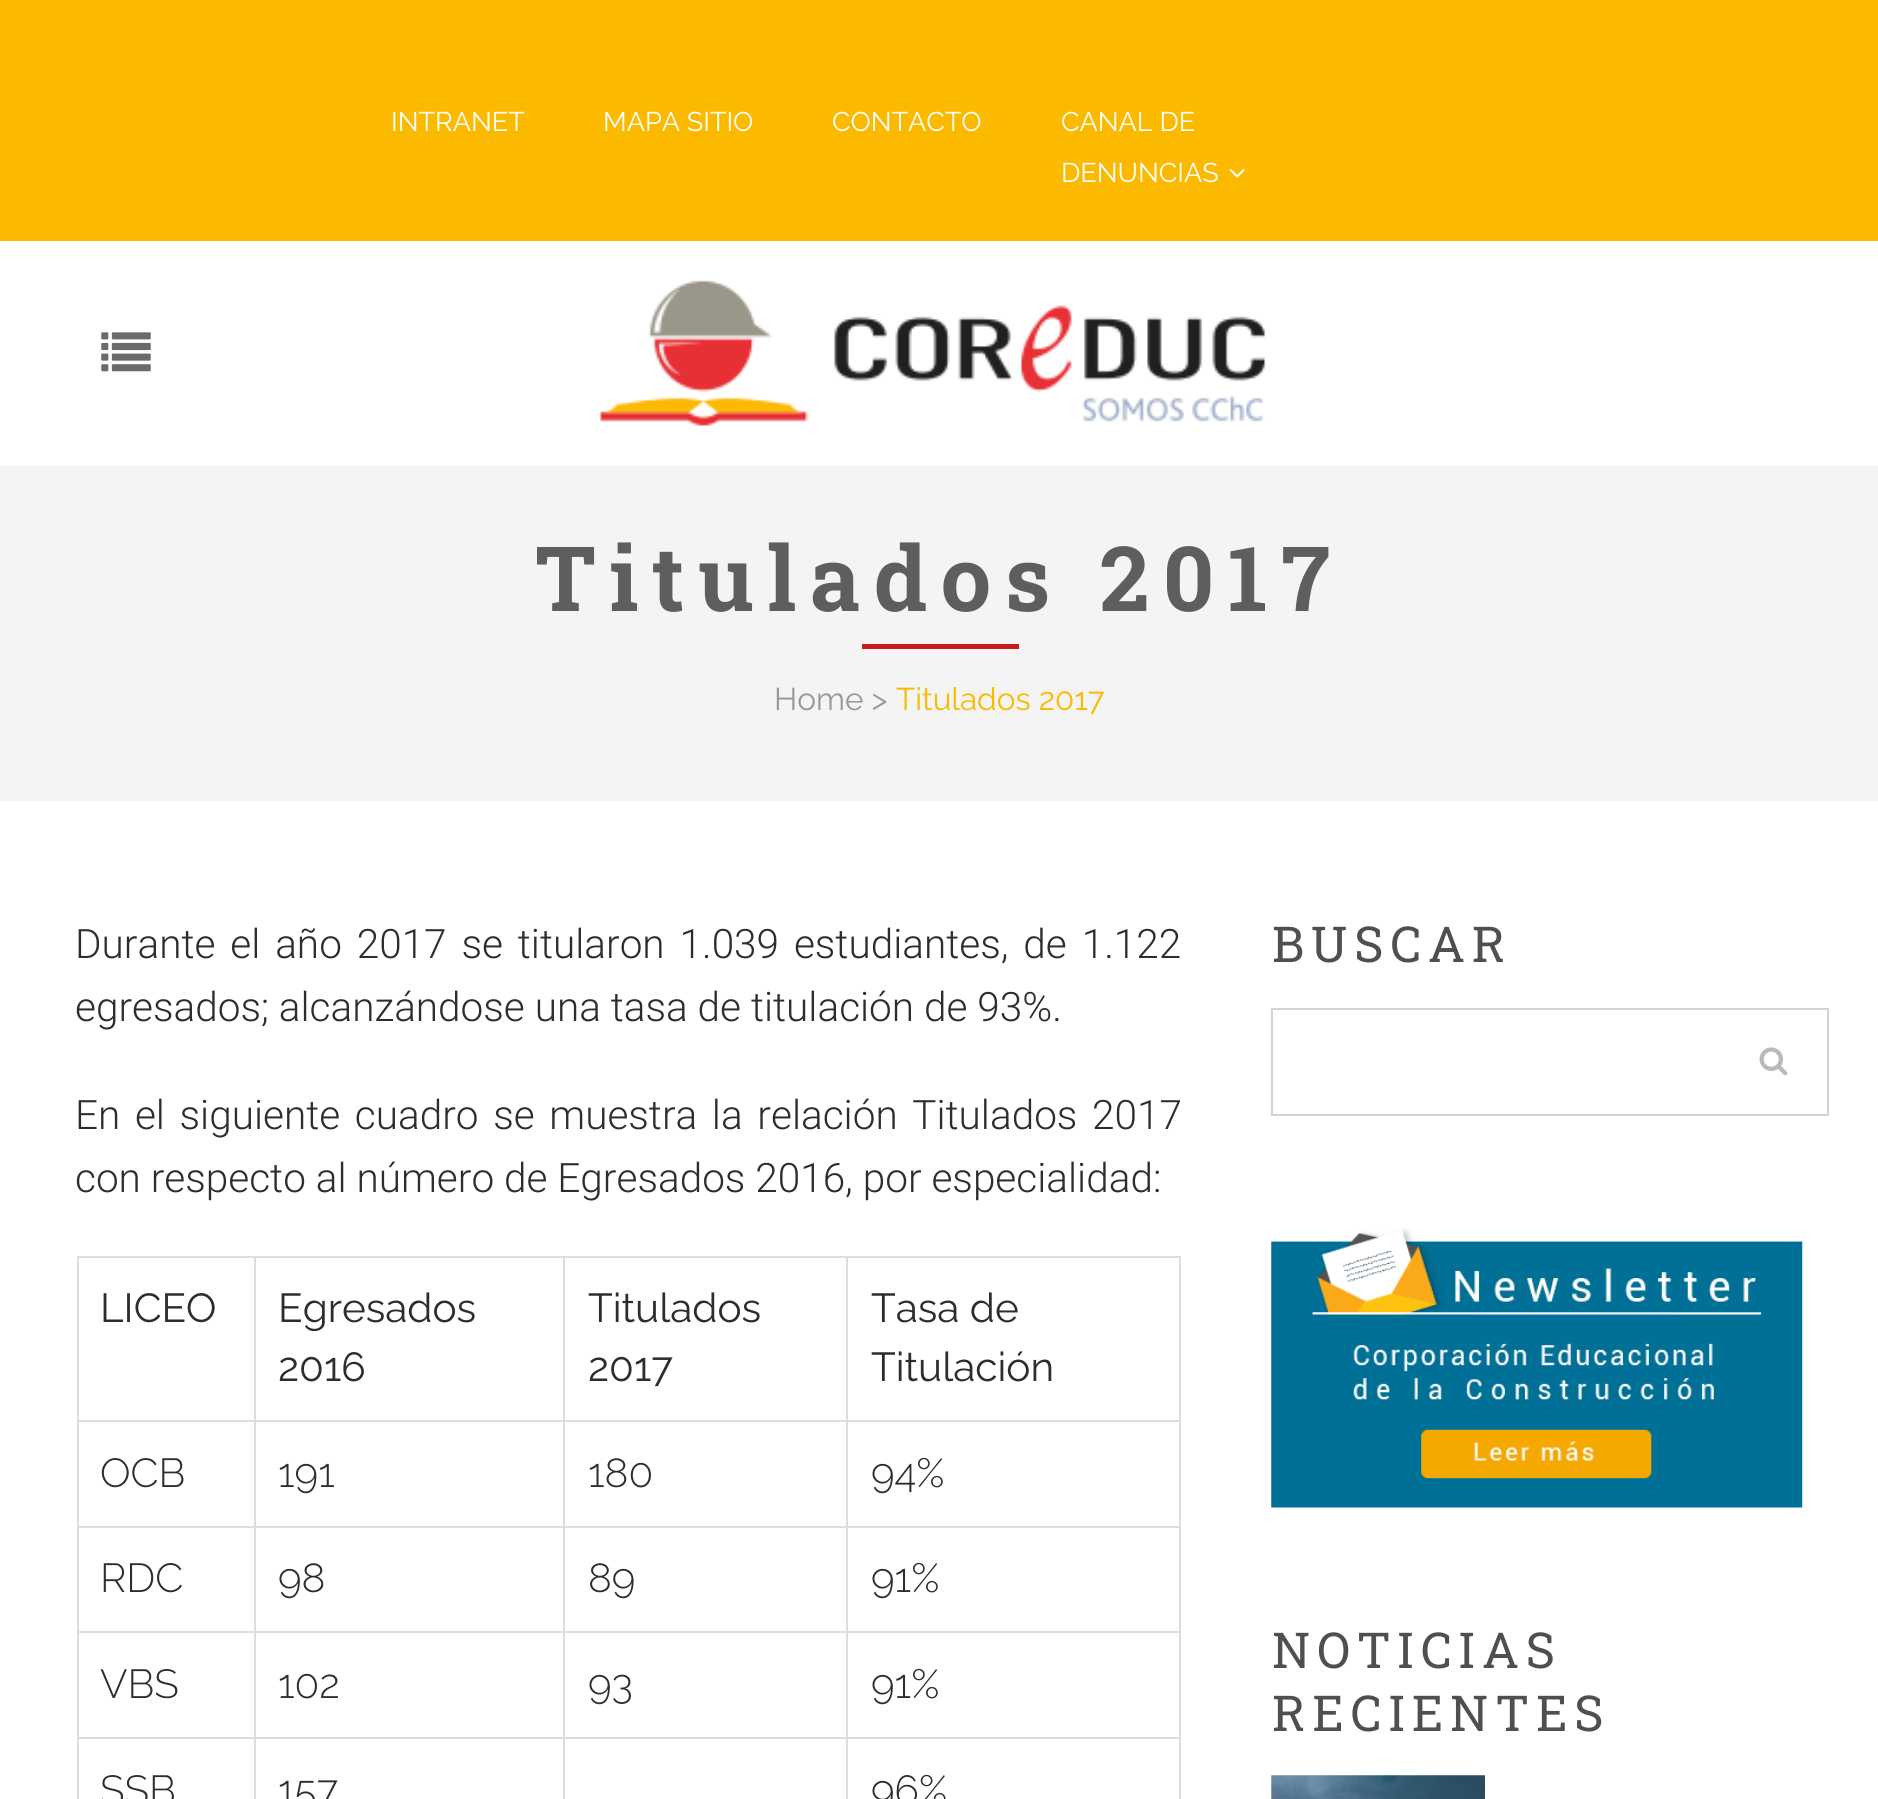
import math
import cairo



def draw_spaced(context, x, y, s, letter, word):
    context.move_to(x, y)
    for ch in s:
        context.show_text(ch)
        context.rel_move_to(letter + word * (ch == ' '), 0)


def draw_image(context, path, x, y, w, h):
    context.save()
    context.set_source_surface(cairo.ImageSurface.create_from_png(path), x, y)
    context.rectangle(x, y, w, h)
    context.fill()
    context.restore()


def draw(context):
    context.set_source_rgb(1, 1, 1)
    context.paint()
    context.set_source_rgb(251 / 255, 185 / 255, 0)
    context.rectangle(0, 0, 1878, 241)
    context.fill()
    draw_image(context, "images/1.png", 1229, 169, 16, 9)
    draw_image(context, "images/2.png", 101, 332, 50, 40)
    draw_image(context, "images/3.png", 600, 280, 666, 146)
    context.set_source_rgb(244 / 255, 244 / 255, 244 / 255)
    context.rectangle(0, 466, 1878, 335)
    context.fill()
    context.set_source_rgb(200 / 255, 28 / 255, 27 / 255)
    context.rectangle(862, 644, 157, 5)
    context.fill()
    context.set_source_rgb(221 / 255, 221 / 255, 221 / 255)
    context.rectangle(846, 1256, 335, 2)
    context.fill()
    context.rectangle(846, 1420, 335, 2)
    context.fill()
    context.rectangle(846, 1526, 335, 2)
    context.fill()
    context.rectangle(846, 1631, 335, 2)
    context.fill()
    context.rectangle(846, 1737, 335, 2)
    context.fill()
    context.rectangle(846, 1737, 2, 62)
    context.fill()
    context.rectangle(563, 1737, 285, 2)
    context.fill()
    context.rectangle(846, 1631, 2, 108)
    context.fill()
    context.rectangle(563, 1631, 285, 2)
    context.fill()
    context.rectangle(846, 1526, 2, 108)
    context.fill()
    context.rectangle(563, 1526, 285, 2)
    context.fill()
    context.rectangle(846, 1420, 2, 108)
    context.fill()
    context.rectangle(563, 1420, 285, 2)
    context.fill()
    context.rectangle(846, 1256, 2, 166)
    context.fill()
    context.rectangle(563, 1256, 285, 2)
    context.fill()
    context.rectangle(563, 1737, 2, 62)
    context.fill()
    context.rectangle(254, 1737, 311, 2)
    context.fill()
    context.rectangle(563, 1631, 2, 108)
    context.fill()
    context.rectangle(254, 1631, 311, 2)
    context.fill()
    context.rectangle(563, 1526, 2, 108)
    context.fill()
    context.rectangle(254, 1526, 311, 2)
    context.fill()
    context.rectangle(563, 1420, 2, 108)
    context.fill()
    context.rectangle(254, 1420, 311, 2)
    context.fill()
    context.rectangle(563, 1256, 2, 166)
    context.fill()
    context.rectangle(254, 1256, 311, 2)
    context.fill()
    context.rectangle(254, 1737, 2, 62)
    context.fill()
    context.rectangle(77, 1737, 180, 2)
    context.fill()
    context.rectangle(254, 1631, 2, 108)
    context.fill()
    context.rectangle(77, 1631, 180, 2)
    context.fill()
    context.rectangle(254, 1526, 2, 108)
    context.fill()
    context.rectangle(77, 1526, 180, 2)
    context.fill()
    context.rectangle(254, 1420, 2, 108)
    context.fill()
    context.rectangle(77, 1420, 180, 2)
    context.fill()
    context.rectangle(254, 1256, 2, 166)
    context.fill()
    context.rectangle(77, 1256, 180, 2)
    context.fill()
    context.rectangle(77, 1737, 2, 62)
    context.fill()
    context.rectangle(77, 1631, 2, 108)
    context.fill()
    context.rectangle(77, 1526, 2, 108)
    context.fill()
    context.rectangle(77, 1420, 2, 108)
    context.fill()
    context.rectangle(77, 1256, 2, 166)
    context.fill()
    context.rectangle(1179, 1737, 2, 62)
    context.fill()
    context.rectangle(1179, 1631, 2, 108)
    context.fill()
    context.rectangle(1179, 1526, 2, 108)
    context.fill()
    context.rectangle(1179, 1420, 2, 108)
    context.fill()
    context.rectangle(1179, 1256, 2, 166)
    context.fill()
    context.rectangle(1272, 1009, 556, 106)
    context.set_source_rgb(211 / 255, 211 / 255, 211 / 255)
    context.stroke()
    draw_image(context, "images/4.png", 1759, 1047, 29, 29)
    draw_image(context, "images/5.png", 1271, 1228, 532, 280)
    draw_image(context, "images/6.png", 1271, 1775, 214, 24)
    context.select_font_face("Raleway")
    context.set_font_size(27)
    context.set_source_rgb(1, 1, 1)
    context.move_to(391, 131)
    context.show_text("INTRANET")
    context.move_to(603, 131)
    context.show_text("MAPA SITIO")
    context.move_to(832, 131)
    context.show_text("CONTACTO")
    context.move_to(1061, 131)
    context.show_text("CANAL DE")
    context.move_to(1061, 182)
    context.show_text("DENUNCIAS")
    context.select_font_face("Roboto Slab", cairo.FontSlant.NORMAL, cairo.FontWeight.BOLD)
    context.set_font_size(90)
    context.set_source_rgb(94 / 255, 94 / 255, 94 / 255)
    draw_spaced(context, 535, 611, "Titulados 2017", 13.5, 0)
    context.select_font_face("Raleway")
    context.set_font_size(31.5)
    context.set_source_rgb(153 / 255, 153 / 255, 153 / 255)
    context.move_to(774, 710)
    context.show_text("Home >")
    context.set_source_rgb(251 / 255, 185 / 255, 0)
    context.move_to(896, 710)
    context.show_text("Titulados 2017")
    context.select_font_face("Roboto Light")
    context.set_font_size(40.5)
    context.set_source_rgb(45 / 255, 45 / 255, 45 / 255)
    draw_spaced(context, 75, 958, "Durante el año 2017 se titularon 1.039 estudiantes, de 1.122", 0, 5)
    context.move_to(75, 1021)
    context.show_text("egresados; alcanzándose una tasa de titulación de 93%.")
    draw_spaced(context, 75, 1129, "En el siguiente cuadro se muestra la relación Titulados 2017", 0, 4.75)
    context.move_to(75, 1192)
    context.show_text("con respecto al número de Egresados 2016, por especialidad:")
    context.select_font_face("Raleway")
    context.move_to(100, 1322)
    context.show_text("LICEO")
    context.move_to(278, 1322)
    context.show_text("Egresados")
    context.move_to(278, 1381)
    context.show_text("2016")
    context.move_to(588, 1322)
    context.show_text("Titulados")
    context.move_to(588, 1381)
    context.show_text("2017")
    context.move_to(871, 1322)
    context.show_text("Tasa de")
    context.move_to(871, 1381)
    context.show_text("Titulación")
    context.select_font_face("Raleway Light")
    context.move_to(100, 1487)
    context.show_text("OCB")
    context.move_to(278, 1487)
    context.show_text("191")
    context.move_to(588, 1487)
    context.show_text("180")
    context.move_to(871, 1487)
    context.show_text("94%")
    context.move_to(100, 1592)
    context.show_text("RDC")
    context.move_to(278, 1592)
    context.show_text("98")
    context.move_to(588, 1592)
    context.show_text("89")
    context.move_to(871, 1592)
    context.show_text("91%")
    context.move_to(100, 1698)
    context.show_text("VBS")
    context.move_to(278, 1698)
    context.show_text("102")
    context.move_to(588, 1698)
    context.show_text("93")
    context.move_to(871, 1698)
    context.show_text("91%")
    context.move_to(100, 1804)
    context.show_text("SSB")
    context.move_to(278, 1804)
    context.show_text("157")
    context.move_to(871, 1804)
    context.show_text("96%")
    context.select_font_face("Roboto Slab")
    context.set_font_size(49.5)
    context.set_source_rgb(79 / 255, 79 / 255, 79 / 255)
    draw_spaced(context, 1272, 962, "BUSCAR", 6.75, 0)
    draw_spaced(context, 1272, 1668, "NOTICIAS", 6.75, 0)
    draw_spaced(context, 1272, 1731, "RECIENTES", 6.75, 0)


surface = cairo.ImageSurface(cairo.Format.RGB24, 1878, 1799)
context = cairo.Context(surface)
options = cairo.FontOptions()
options.set_hint_metrics(cairo.HintMetrics.OFF)
options.set_hint_style(cairo.HintStyle.NONE)
context.set_font_options(options)
context.set_miter_limit(4)
draw(context)
surface.write_to_png("out.png")
